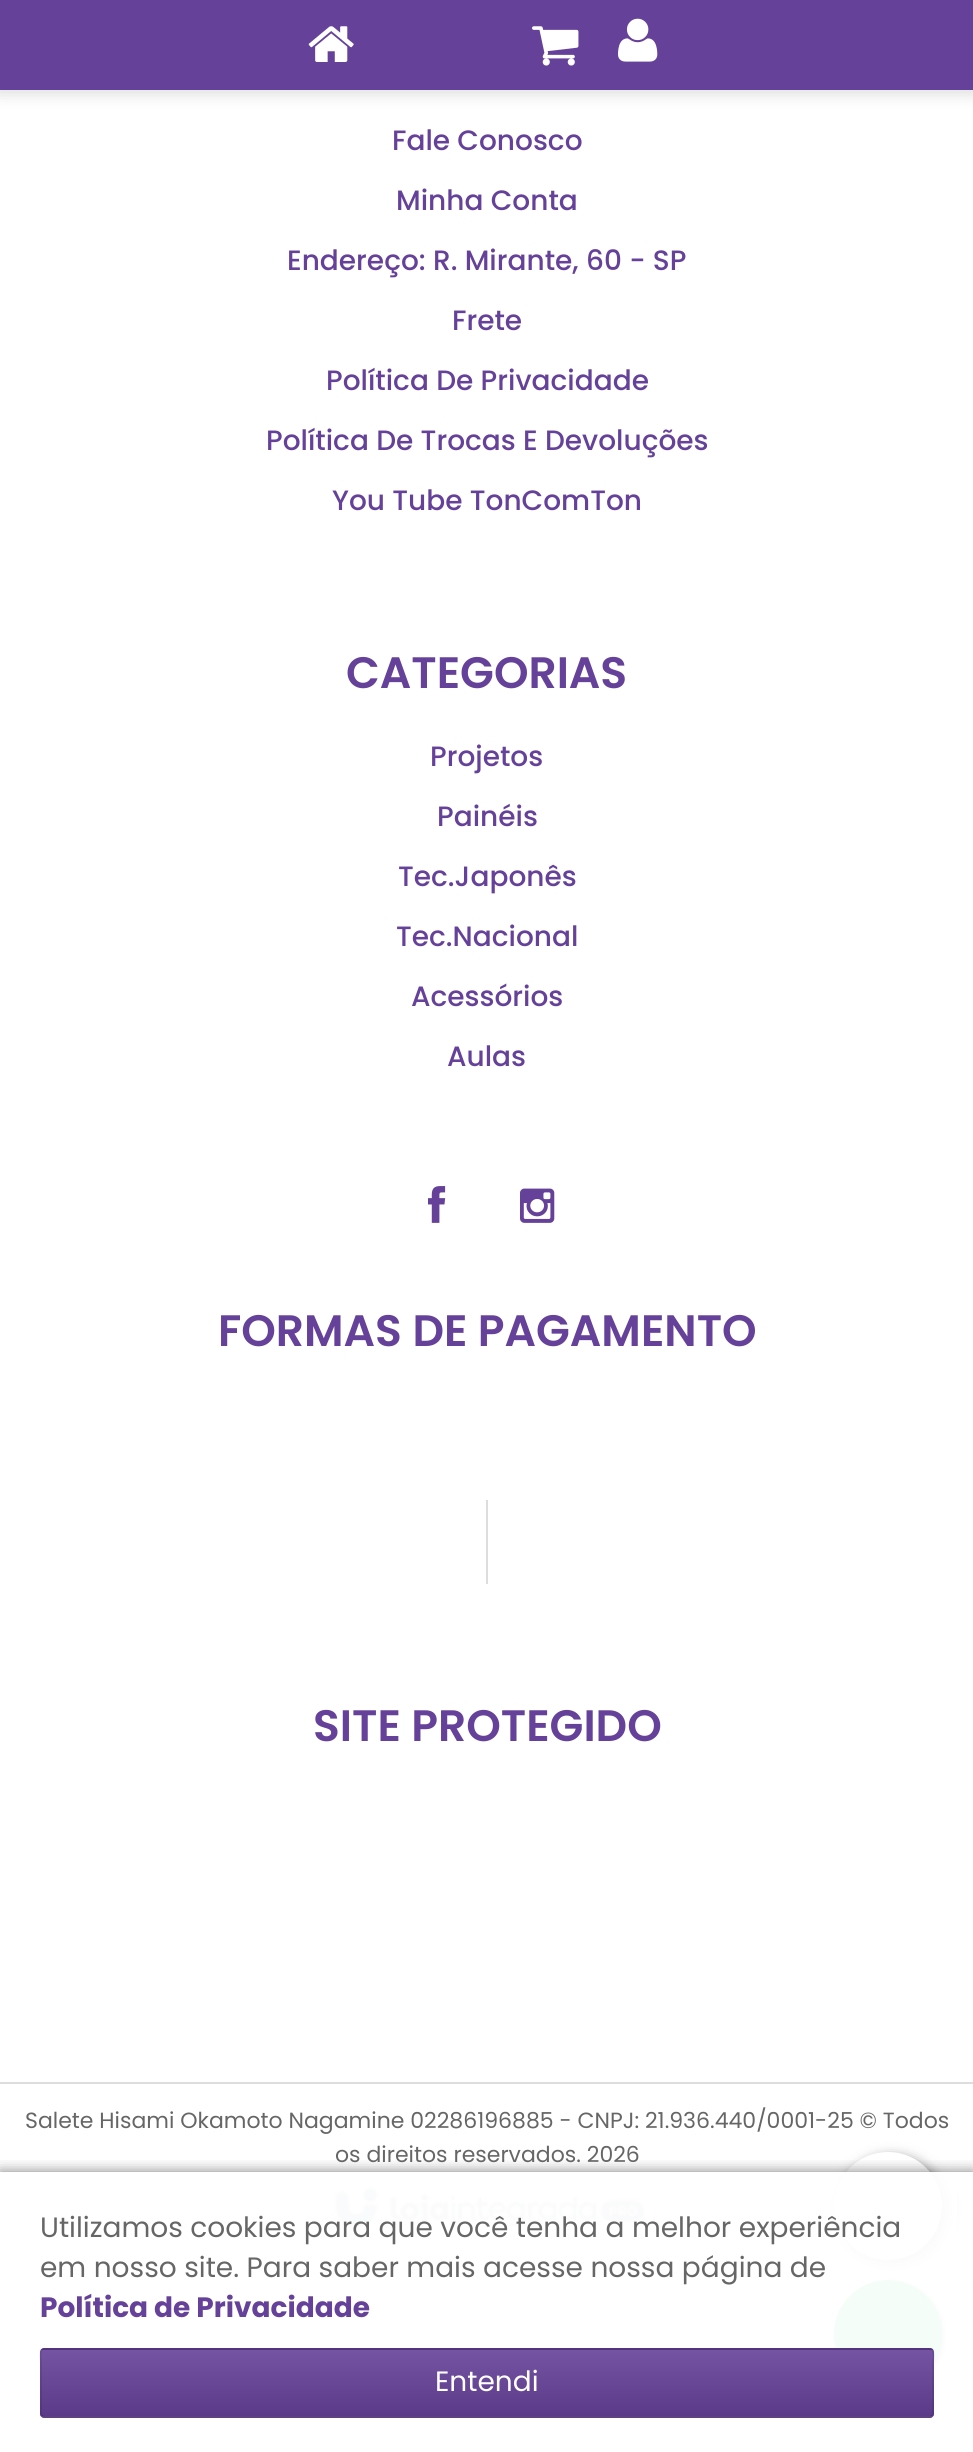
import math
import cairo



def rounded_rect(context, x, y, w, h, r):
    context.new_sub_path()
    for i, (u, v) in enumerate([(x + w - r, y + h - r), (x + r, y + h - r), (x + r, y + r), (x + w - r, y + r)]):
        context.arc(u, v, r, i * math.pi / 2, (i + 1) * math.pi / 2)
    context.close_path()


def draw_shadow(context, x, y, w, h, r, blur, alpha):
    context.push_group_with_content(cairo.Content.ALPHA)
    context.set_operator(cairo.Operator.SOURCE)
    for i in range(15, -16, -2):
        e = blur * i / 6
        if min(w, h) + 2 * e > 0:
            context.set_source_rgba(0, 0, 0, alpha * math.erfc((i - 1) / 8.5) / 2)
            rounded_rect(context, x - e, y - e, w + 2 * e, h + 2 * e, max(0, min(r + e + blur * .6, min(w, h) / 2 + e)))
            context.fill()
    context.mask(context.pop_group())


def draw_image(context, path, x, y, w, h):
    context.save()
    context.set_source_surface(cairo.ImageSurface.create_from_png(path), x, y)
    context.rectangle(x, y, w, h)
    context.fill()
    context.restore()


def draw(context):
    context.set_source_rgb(1, 1, 1)
    context.paint()
    context.set_source_rgb(0, 0, 0)
    draw_shadow(context, -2, -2, 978, 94, 0, 9, 0.16)
    context.set_source_rgb(101 / 255, 65 / 255, 154 / 255)
    context.rectangle(0, 0, 973, 90)
    context.fill()
    draw_image(context, "images/1.png", 308, 26, 46, 36)
    draw_image(context, "images/2.png", 532, 26, 47, 40)
    draw_image(context, "images/3.png", 618, 18, 40, 44)
    draw_image(context, "images/4.png", 428, 1186, 18, 37)
    draw_image(context, "images/5.png", 520, 1188, 35, 35)
    context.set_source_rgb(221 / 255, 221 / 255, 221 / 255)
    context.rectangle(486, 1500, 2, 84)
    context.fill()
    context.rectangle(0, 2082, 973, 2)
    context.fill()
    draw_image(context, "images/6.png", 335, 2187, 310, 40)
    context.set_source_rgb(136 / 255, 136 / 255, 136 / 255)
    draw_shadow(context, 836, 2282, 108, 108, 54, 2, 1)
    context.set_source_rgb(0, 0, 0)
    draw_shadow(context, 838, 2156, 108, 108, 54, 6, 0.4)
    context.set_source_rgb(37 / 255, 211 / 255, 102 / 255)
    context.arc(888, 2334, 54, 0, 2 * math.pi)
    context.fill()
    context.set_source_rgb(1, 1, 1)
    context.arc(888, 2206, 54, 0, 2 * math.pi)
    context.fill()
    context.save()
    context.rectangle(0, 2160, 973, 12)
    context.clip()
    context.set_source_rgb(0, 0, 0)
    draw_shadow(context, 0, 2172, 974, 280, 0, 7, 0.5)
    context.restore()
    context.set_source_rgba(1, 1, 1, 0.95)
    context.rectangle(335, 2172, 622, 222)
    context.fill()
    context.set_source_rgb(101 / 255, 65 / 255, 154 / 255)
    rounded_rect(context, 40, 2348, 894, 70, 4)
    context.fill()
    context.save()
    rounded_rect(context, 40, 2348, 894, 70, 4)
    context.clip()
    gradient = cairo.LinearGradient(487, 2284, 487, 2350)
    gradient.add_color_stop_rgba(0, 1, 1, 1, 0.1)
    gradient.add_color_stop_rgba(1, 0, 0, 0, 0.1)
    context.set_source(gradient)
    context.rectangle(40, 2348, 894, 2)
    context.fill()
    context.restore()
    gradient = cairo.LinearGradient(487, 2350, 487, 2416)
    gradient.add_color_stop_rgba(0, 1, 1, 1, 0.1)
    gradient.add_color_stop_rgba(1, 0, 0, 0, 0.1)
    context.set_source(gradient)
    context.rectangle(40, 2350, 894, 66)
    context.fill()
    context.save()
    rounded_rect(context, 40, 2348, 894, 70, 4)
    context.clip()
    gradient = cairo.LinearGradient(487, 2416, 487, 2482)
    gradient.add_color_stop_rgba(0, 1, 1, 1, 0.1)
    gradient.add_color_stop_rgba(1, 0, 0, 0, 0.1)
    context.set_source(gradient)
    context.rectangle(40, 2416, 894, 2)
    context.fill()
    context.restore()
    context.new_path()
    context.move_to(932, 2416)
    context.line_to(930, 2417)
    context.line_to(44, 2417)
    context.line_to(42, 2416)
    context.set_source_rgba(0, 0, 0, 0.2)
    context.stroke()
    context.new_path()
    context.move_to(42, 2416)
    context.line_to(41, 2414)
    context.line_to(41, 2362.5)
    context.curve_to(41, 2362, 38.5, 2349, 44, 2349)
    context.line_to(930, 2349)
    context.curve_to(935.5, 2349, 933, 2362, 933, 2362.5)
    context.line_to(933, 2414)
    context.line_to(932, 2416)
    context.set_source_rgba(0, 0, 0, 0.1)
    context.stroke()
    context.select_font_face("Poppins Medium")
    context.set_font_size(28)
    context.set_source_rgb(101 / 255, 65 / 255, 154 / 255)
    context.move_to(392, 150)
    context.show_text("Fale Conosco")
    context.move_to(396, 210)
    context.show_text("Minha Conta")
    context.move_to(287, 270)
    context.show_text("Endereço: R. Mirante, 60 - SP")
    context.move_to(452, 330)
    context.show_text("Frete")
    context.move_to(326, 390)
    context.show_text("Política De Privacidade")
    context.move_to(266, 450)
    context.show_text("Política De Trocas E Devoluções")
    context.move_to(332, 510)
    context.show_text("You Tube TonComTon")
    context.select_font_face("Poppins SemiBold")
    context.set_font_size(44)
    context.move_to(346, 688)
    context.show_text("CATEGORIAS")
    context.select_font_face("Poppins Medium")
    context.set_font_size(28)
    context.move_to(430, 766)
    context.show_text("Projetos")
    context.move_to(437, 826)
    context.show_text("Painéis")
    context.move_to(398, 886)
    context.show_text("Tec.Japonês")
    context.move_to(396, 946)
    context.show_text("Tec.Nacional")
    context.move_to(411, 1006)
    context.show_text("Acessórios")
    context.move_to(447, 1066)
    context.show_text("Aulas")
    context.select_font_face("Poppins SemiBold")
    context.set_font_size(44)
    context.move_to(218, 1346)
    context.show_text("FORMAS DE PAGAMENTO")
    context.move_to(313, 1741)
    context.show_text("SITE PROTEGIDO")
    context.select_font_face("Poppins")
    context.set_font_size(22)
    context.set_source_rgb(102 / 255, 102 / 255, 102 / 255)
    context.move_to(25, 2128)
    context.show_text("Salete Hisami Okamoto Nagamine 02286196885 - CNPJ: 21.936.440/0001-25 © Todos")
    context.move_to(335, 2162)
    context.show_text("os direitos reservados. 2026")
    context.set_font_size(28)
    context.move_to(40, 2237)
    context.show_text("Utilizamos cookies para que você tenha a melhor experiência")
    context.move_to(40, 2277)
    context.show_text("em nosso site. Para saber mais acesse nossa página de")
    context.select_font_face("Poppins", cairo.FontSlant.NORMAL, cairo.FontWeight.BOLD)
    context.set_source_rgb(101 / 255, 65 / 255, 154 / 255)
    context.move_to(40, 2317)
    context.show_text("Política de Privacidade")
    context.select_font_face("Poppins")
    context.set_source_rgb(1, 1, 1)
    context.move_to(435, 2391)
    context.show_text("Entendi")


surface = cairo.ImageSurface(cairo.Format.RGB24, 973, 2452)
context = cairo.Context(surface)
options = cairo.FontOptions()
options.set_hint_metrics(cairo.HintMetrics.OFF)
options.set_hint_style(cairo.HintStyle.NONE)
context.set_font_options(options)
context.set_miter_limit(4)
draw(context)
surface.write_to_png("out.png")
